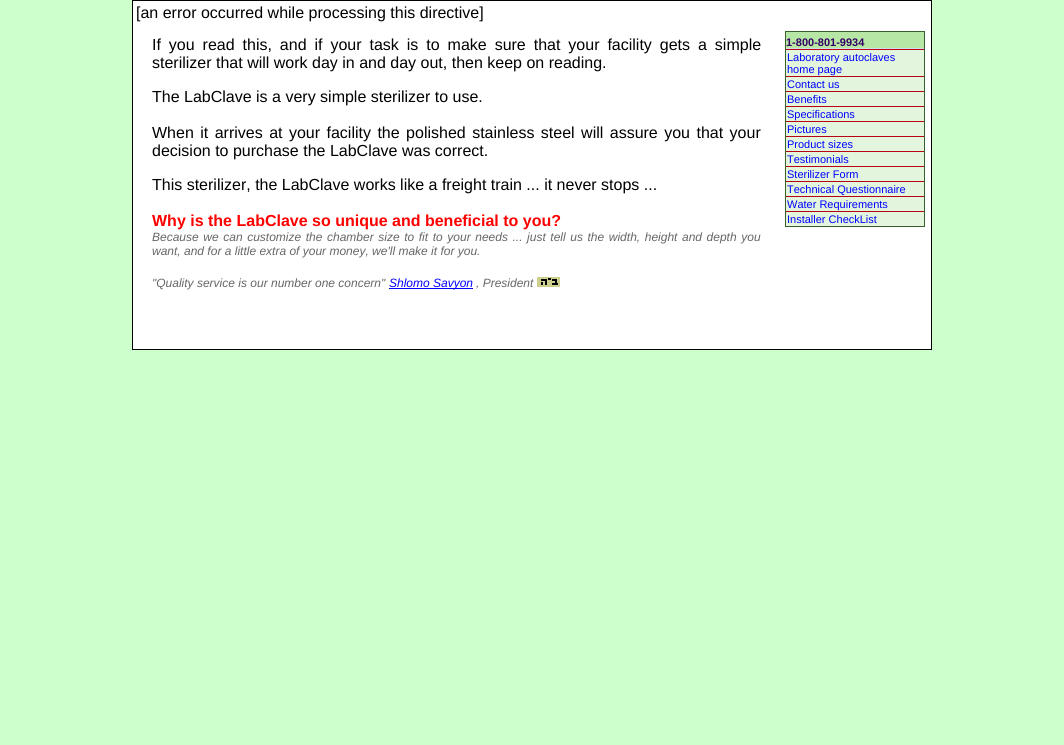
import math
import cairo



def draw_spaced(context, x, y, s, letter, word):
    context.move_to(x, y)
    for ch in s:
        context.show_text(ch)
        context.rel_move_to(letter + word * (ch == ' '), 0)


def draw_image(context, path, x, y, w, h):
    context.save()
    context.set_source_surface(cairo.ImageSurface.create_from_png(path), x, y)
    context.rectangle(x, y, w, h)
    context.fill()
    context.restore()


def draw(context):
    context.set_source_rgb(204 / 255, 1, 204 / 255)
    context.paint()
    context.set_source_rgb(1, 1, 1)
    context.rectangle(133, 1, 798, 348)
    context.fill()
    context.set_source_rgb(0, 0, 0)
    context.rectangle(132, 0, 800, 1)
    context.fill()
    context.rectangle(931, 0, 1, 350)
    context.fill()
    context.rectangle(132, 349, 800, 1)
    context.fill()
    context.rectangle(132, 0, 1, 350)
    context.fill()
    context.set_source_rgb(0, 0, 1)
    context.rectangle(389, 288, 84, 1)
    context.fill()
    draw_image(context, "images/1.png", 537, 277, 23, 10)
    context.set_source_rgb(227 / 255, 245 / 255, 221 / 255)
    context.rectangle(786, 50, 138, 176)
    context.fill()
    context.rectangle(785.5, 31.5, 139, 195)
    context.set_source_rgb(57 / 255, 98 / 255, 42 / 255)
    context.set_line_width(1)
    context.stroke()
    context.set_source_rgb(182 / 255, 231 / 255, 164 / 255)
    context.rectangle(786, 32, 138, 16)
    context.fill()
    context.set_source_rgb(206 / 255, 222 / 255, 234 / 255)
    context.rectangle(786, 48, 138, 1)
    context.fill()
    context.set_source_rgb(183 / 255, 2 / 255, 19 / 255)
    context.rectangle(786, 49, 138, 1)
    context.fill()
    context.rectangle(786, 76, 138, 1)
    context.fill()
    context.rectangle(786, 91, 138, 1)
    context.fill()
    context.rectangle(786, 106, 138, 1)
    context.fill()
    context.rectangle(786, 121, 138, 1)
    context.fill()
    context.rectangle(786, 136, 138, 1)
    context.fill()
    context.rectangle(786, 151, 138, 1)
    context.fill()
    context.rectangle(786, 166, 138, 1)
    context.fill()
    context.rectangle(786, 181, 138, 1)
    context.fill()
    context.rectangle(786, 196, 138, 1)
    context.fill()
    context.rectangle(786, 211, 138, 1)
    context.fill()
    context.select_font_face("Liberation Sans")
    context.set_font_size(16)
    context.set_source_rgb(0, 0, 0)
    context.move_to(136, 18)
    context.show_text("[an error occurred while processing this directive]")
    draw_spaced(context, 152, 50, "If you read this, and if your task is to make sure that your facility gets a simple", 0, 3.5)
    context.move_to(152, 68)
    context.show_text("sterilizer that will work day in and day out, then keep on reading.")
    context.move_to(152, 102)
    context.show_text("The LabClave is a very simple sterilizer to use.")
    draw_spaced(context, 152, 138, "When it arrives at your facility the polished stainless steel will assure you that your", 0, 2)
    context.move_to(152, 156)
    context.show_text("decision to purchase the LabClave was correct.")
    context.move_to(152, 190)
    context.show_text("This sterilizer, the LabClave works like a freight train ... it never stops ...")
    context.select_font_face("Liberation Sans", cairo.FontSlant.NORMAL, cairo.FontWeight.BOLD)
    context.set_source_rgb(1, 0, 0)
    context.move_to(152, 226)
    context.show_text("Why is the LabClave so unique and beneficial to you?")
    context.select_font_face("Liberation Sans", cairo.FontSlant.ITALIC)
    context.set_font_size(12)
    context.set_source_rgb(102 / 255, 102 / 255, 102 / 255)
    draw_spaced(context, 152, 241, "Because we can customize the chamber size to fit to your needs ... just tell us the width, height and depth you", 0, 1.25)
    context.move_to(152, 255)
    context.show_text("want, and for a little extra of your money, we'll make it for you.")
    context.move_to(152, 287)
    context.show_text("\"Quality service is our number one concern\"")
    context.set_source_rgb(0, 0, 1)
    context.move_to(389, 287)
    context.show_text("Shlomo Savyon")
    context.set_source_rgb(102 / 255, 102 / 255, 102 / 255)
    context.move_to(476, 287)
    context.show_text(", President")
    context.select_font_face("Liberation Sans", cairo.FontSlant.NORMAL, cairo.FontWeight.BOLD)
    context.set_font_size(11)
    context.set_source_rgb(51 / 255, 0, 102 / 255)
    context.move_to(786, 46)
    context.show_text("1-800-801-9934")
    context.select_font_face("Liberation Sans")
    context.set_source_rgb(0, 0, 1)
    context.move_to(787, 61)
    context.show_text("Laboratory autoclaves")
    context.move_to(787, 73)
    context.show_text("home page")
    context.move_to(787, 88)
    context.show_text("Contact us")
    context.move_to(787, 103)
    context.show_text("Benefits")
    context.move_to(787, 118)
    context.show_text("Specifications")
    context.move_to(787, 133)
    context.show_text("Pictures")
    context.move_to(787, 148)
    context.show_text("Product sizes")
    context.move_to(787, 163)
    context.show_text("Testimonials")
    context.move_to(787, 178)
    context.show_text("Sterilizer Form")
    context.move_to(787, 193)
    context.show_text("Technical Questionnaire")
    context.move_to(787, 208)
    context.show_text("Water Requirements")
    context.move_to(787, 223)
    context.show_text("Installer CheckList")


surface = cairo.ImageSurface(cairo.Format.RGB24, 1064, 745)
context = cairo.Context(surface)
options = cairo.FontOptions()
options.set_hint_metrics(cairo.HintMetrics.OFF)
options.set_hint_style(cairo.HintStyle.NONE)
context.set_font_options(options)
context.set_miter_limit(4)
draw(context)
surface.write_to_png("out.png")
